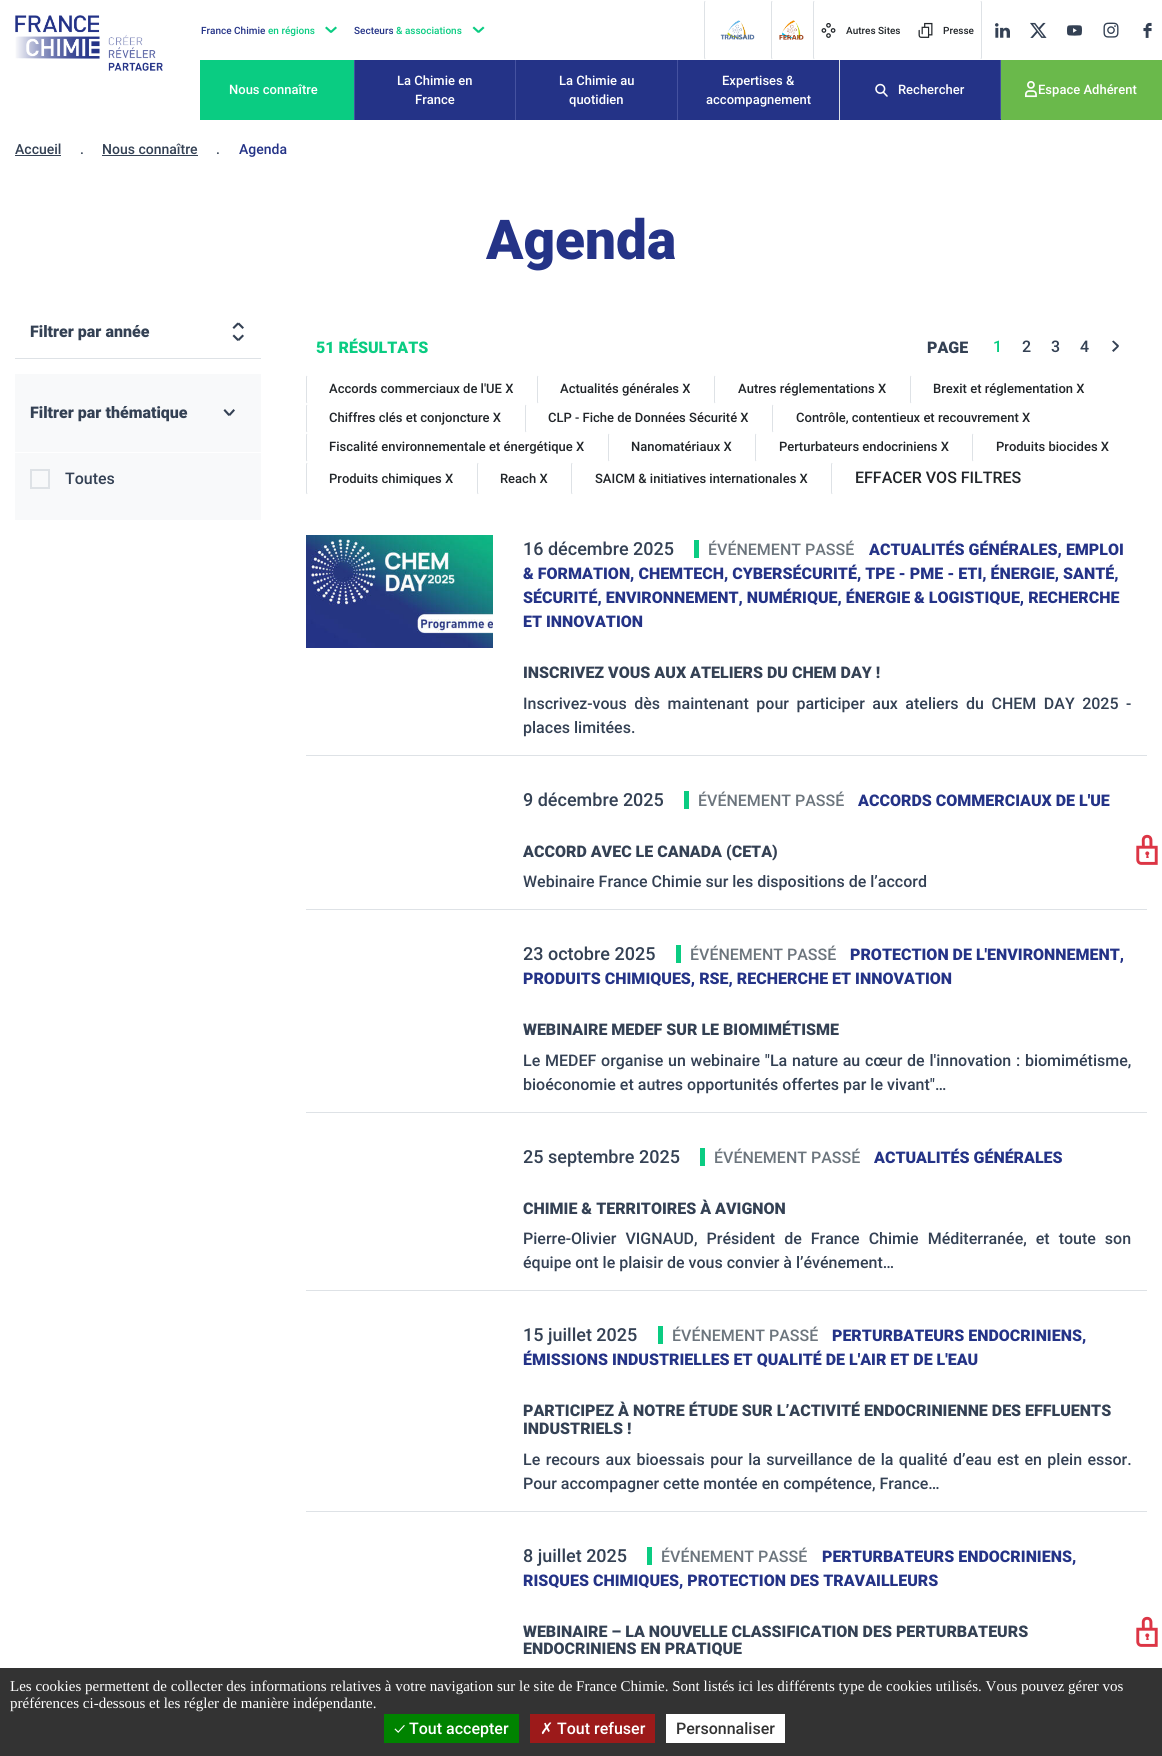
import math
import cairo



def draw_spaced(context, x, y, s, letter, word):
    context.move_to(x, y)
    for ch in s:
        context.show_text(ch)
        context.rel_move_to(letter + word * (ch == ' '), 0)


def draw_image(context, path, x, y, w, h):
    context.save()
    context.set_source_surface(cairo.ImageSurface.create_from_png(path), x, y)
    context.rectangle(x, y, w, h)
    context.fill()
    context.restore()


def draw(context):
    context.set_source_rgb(1, 1, 1)
    context.paint()
    draw_image(context, "images/1.png", 15, 15, 148, 56)
    context.set_source_rgb(10 / 255, 204 / 255, 130 / 255)
    context.new_path()
    context.move_to(326.5, 26.5)
    context.line_to(332, 31.5)
    context.line_to(330.5, 33)
    context.line_to(325, 28)
    context.close_path()
    context.fill()
    context.new_path()
    context.move_to(330, 31.5)
    context.line_to(335.5, 26.5)
    context.line_to(337, 28)
    context.line_to(331.5, 33)
    context.close_path()
    context.fill()
    context.new_path()
    context.move_to(474, 26.5)
    context.line_to(479.5, 31.5)
    context.line_to(478, 33)
    context.line_to(472.5, 28)
    context.close_path()
    context.fill()
    context.new_path()
    context.move_to(477.5, 31.5)
    context.line_to(483, 26.5)
    context.line_to(484.5, 28)
    context.line_to(479, 33)
    context.close_path()
    context.fill()
    context.new_path()
    context.move_to(705, 59)
    context.line_to(704.5, 57.5)
    context.line_to(704.5, 2.5)
    context.line_to(705, 1)
    context.set_source_rgb(222 / 255, 226 / 255, 230 / 255)
    context.set_line_width(1)
    context.stroke()
    draw_image(context, "images/2.png", 720, 20, 35, 20)
    context.new_path()
    context.move_to(772, 59)
    context.line_to(771.5, 57.5)
    context.line_to(771.5, 2.5)
    context.line_to(772, 1)
    context.stroke()
    draw_image(context, "images/3.png", 779, 20, 25, 20)
    context.new_path()
    context.move_to(814, 59)
    context.line_to(813.5, 57.5)
    context.line_to(813.5, 2.5)
    context.line_to(814, 1)
    context.stroke()
    draw_image(context, "images/4.png", 821, 23, 15, 15)
    context.new_path()
    context.move_to(981, 1)
    context.line_to(981.5, 2.5)
    context.line_to(981.5, 57.5)
    context.line_to(981, 59)
    context.stroke()
    draw_image(context, "images/5.png", 918, 22, 15, 16)
    draw_image(context, "images/6.png", 995, 23, 15, 15)
    draw_image(context, "images/7.png", 1030, 22, 17, 16)
    draw_image(context, "images/8.png", 1067, 25, 15, 11)
    draw_image(context, "images/9.png", 1103, 22, 16, 16)
    draw_image(context, "images/10.png", 1143, 22, 9, 16)
    context.set_source_rgb(10 / 255, 204 / 255, 130 / 255)
    context.rectangle(200, 60, 154, 60)
    context.fill()
    context.set_source_rgb(69 / 255, 82 / 255, 160 / 255)
    context.rectangle(354, 60, 1, 60)
    context.fill()
    context.set_source_rgb(36 / 255, 51 / 255, 135 / 255)
    context.rectangle(355, 60, 160, 60)
    context.fill()
    context.set_source_rgb(69 / 255, 82 / 255, 160 / 255)
    context.rectangle(515, 60, 1, 60)
    context.fill()
    context.set_source_rgb(36 / 255, 51 / 255, 135 / 255)
    context.rectangle(516, 60, 161, 60)
    context.fill()
    context.set_source_rgb(69 / 255, 82 / 255, 160 / 255)
    context.rectangle(677, 60, 1, 60)
    context.fill()
    context.set_source_rgb(36 / 255, 51 / 255, 135 / 255)
    context.rectangle(678, 60, 161, 60)
    context.fill()
    context.rectangle(840, 60, 160, 59)
    context.fill()
    context.set_source_rgb(69 / 255, 82 / 255, 160 / 255)
    context.rectangle(1000, 60, 1, 60)
    context.fill()
    context.set_source_rgb(36 / 255, 51 / 255, 135 / 255)
    context.rectangle(839, 119, 162, 1)
    context.fill()
    context.set_source_rgb(222 / 255, 226 / 255, 230 / 255)
    context.rectangle(839, 60, 1, 60)
    context.fill()
    draw_image(context, "images/11.png", 875, 83, 13, 14)
    context.set_source_rgb(106 / 255, 185 / 255, 75 / 255)
    context.rectangle(1001, 60, 161, 60)
    context.fill()
    draw_image(context, "images/12.png", 1025, 81, 12, 17)
    context.set_source_rgb(52 / 255, 65 / 255, 84 / 255)
    context.rectangle(15, 155, 46, 1)
    context.fill()
    context.rectangle(102, 155, 96, 1)
    context.fill()
    context.set_source_rgb(222 / 255, 226 / 255, 230 / 255)
    context.rectangle(15, 358, 246, 1)
    context.fill()
    context.set_source_rgb(52 / 255, 65 / 255, 84 / 255)
    context.new_path()
    context.move_to(242.5, 329)
    context.line_to(237.5, 324)
    context.line_to(239, 322.5)
    context.line_to(244, 327.5)
    context.close_path()
    context.fill()
    context.new_path()
    context.move_to(239, 324)
    context.line_to(234, 329)
    context.line_to(232.5, 327.5)
    context.line_to(237.5, 322.5)
    context.close_path()
    context.move_to(234, 334.5)
    context.line_to(239, 339.5)
    context.line_to(237.5, 341)
    context.line_to(232.5, 336)
    context.close_path()
    context.fill()
    context.new_path()
    context.move_to(237.5, 339.5)
    context.line_to(242.5, 334.5)
    context.line_to(244, 336)
    context.line_to(239, 341)
    context.close_path()
    context.fill()
    context.set_source_rgb(248 / 255, 249 / 255, 250 / 255)
    context.rectangle(15, 374, 246, 78)
    context.fill()
    context.set_source_rgb(52 / 255, 65 / 255, 84 / 255)
    context.new_path()
    context.move_to(225, 409)
    context.line_to(230, 414.5)
    context.line_to(228.5, 416)
    context.line_to(223.5, 410.5)
    context.close_path()
    context.fill()
    context.new_path()
    context.move_to(228.5, 414.5)
    context.line_to(233.5, 409)
    context.line_to(235, 410.5)
    context.line_to(230, 416)
    context.close_path()
    context.fill()
    context.set_source_rgb(248 / 255, 249 / 255, 250 / 255)
    context.rectangle(15, 453, 246, 67)
    context.fill()
    context.rectangle(31, 470, 18, 18)
    context.set_source_rgb(222 / 255, 226 / 255, 230 / 255)
    context.set_line_width(2)
    context.stroke()
    context.set_source_rgb(52 / 255, 65 / 255, 84 / 255)
    context.new_path()
    context.move_to(1112, 350.5)
    context.line_to(1117.5, 345.5)
    context.line_to(1119, 346.5)
    context.line_to(1113.5, 352)
    context.close_path()
    context.fill()
    context.new_path()
    context.move_to(1117.5, 347)
    context.line_to(1112, 341.5)
    context.line_to(1113.5, 340.5)
    context.line_to(1119, 345.5)
    context.close_path()
    context.fill()
    context.new_path()
    context.move_to(307, 403)
    context.curve_to(306.5, 402.5, 306.5, 402, 306.5, 401.5)
    context.line_to(306.5, 377.5)
    context.curve_to(306.5, 377, 306.5, 376.5, 307, 376)
    context.set_source_rgb(222 / 255, 226 / 255, 230 / 255)
    context.set_line_width(1)
    context.stroke()
    context.new_path()
    context.move_to(538, 403)
    context.curve_to(537.5, 402.5, 537.5, 402, 537.5, 401.5)
    context.line_to(537.5, 377.5)
    context.curve_to(537.5, 377, 537.5, 376.5, 538, 376)
    context.stroke()
    context.new_path()
    context.move_to(715, 403)
    context.curve_to(714.5, 402.5, 714.5, 402, 714.5, 401.5)
    context.line_to(714.5, 377.5)
    context.curve_to(714.5, 377, 714.5, 376.5, 715, 376)
    context.stroke()
    context.new_path()
    context.move_to(911, 403)
    context.curve_to(910.5, 402.5, 910.5, 402, 910.5, 401.5)
    context.line_to(910.5, 377.5)
    context.curve_to(910.5, 377, 910.5, 376.5, 911, 376)
    context.stroke()
    context.new_path()
    context.move_to(307, 432)
    context.curve_to(306.5, 431.5, 306.5, 431, 306.5, 430.5)
    context.line_to(306.5, 406.5)
    context.curve_to(306.5, 406, 306.5, 405.5, 307, 405)
    context.stroke()
    context.new_path()
    context.move_to(526, 432)
    context.curve_to(525.5, 431.5, 525.5, 431, 525.5, 430.5)
    context.line_to(525.5, 406.5)
    context.curve_to(525.5, 406, 525.5, 405.5, 526, 405)
    context.stroke()
    context.new_path()
    context.move_to(773, 432)
    context.curve_to(772.5, 431.5, 772.5, 431, 772.5, 430.5)
    context.line_to(772.5, 406.5)
    context.curve_to(772.5, 406, 772.5, 405.5, 773, 405)
    context.stroke()
    context.new_path()
    context.move_to(307, 461)
    context.curve_to(306.5, 460.5, 306.5, 460, 306.5, 459.5)
    context.line_to(306.5, 435.5)
    context.curve_to(306.5, 435, 306.5, 434.5, 307, 434)
    context.stroke()
    context.new_path()
    context.move_to(609, 461)
    context.curve_to(608.5, 460.5, 608.5, 460, 608.5, 459.5)
    context.line_to(608.5, 435.5)
    context.curve_to(608.5, 435, 608.5, 434.5, 609, 434)
    context.stroke()
    context.new_path()
    context.move_to(756, 461)
    context.curve_to(755.5, 460.5, 755.5, 460, 755.5, 459.5)
    context.line_to(755.5, 435.5)
    context.curve_to(755.5, 435, 755.5, 434.5, 756, 434)
    context.stroke()
    context.new_path()
    context.move_to(973, 461)
    context.curve_to(972.5, 460.5, 972.5, 460, 972.5, 459.5)
    context.line_to(972.5, 435.5)
    context.curve_to(972.5, 435, 972.5, 434.5, 973, 434)
    context.stroke()
    context.new_path()
    context.move_to(307, 494)
    context.line_to(306.5, 492.5)
    context.line_to(306.5, 464.5)
    context.line_to(307, 463)
    context.stroke()
    context.new_path()
    context.move_to(478, 494)
    context.line_to(477.5, 492.5)
    context.line_to(477.5, 464.5)
    context.line_to(478, 463)
    context.stroke()
    context.new_path()
    context.move_to(572, 494)
    context.line_to(571.5, 492.5)
    context.line_to(571.5, 464.5)
    context.line_to(572, 463)
    context.stroke()
    context.new_path()
    context.move_to(832, 494)
    context.line_to(831.5, 492.5)
    context.line_to(831.5, 464.5)
    context.line_to(832, 463)
    context.stroke()
    context.rectangle(306, 755, 841, 1)
    context.fill()
    draw_image(context, "images/13.png", 306, 535, 187, 113)
    context.set_source_rgb(10 / 255, 204 / 255, 130 / 255)
    context.rectangle(694, 540, 5, 18)
    context.fill()
    context.set_source_rgb(222 / 255, 226 / 255, 230 / 255)
    context.rectangle(306, 909, 841, 1)
    context.fill()
    context.set_source_rgb(10 / 255, 204 / 255, 130 / 255)
    context.rectangle(684, 791, 5, 18)
    context.fill()
    draw_image(context, "images/14.png", 1136, 834, 22, 31)
    context.set_source_rgb(222 / 255, 226 / 255, 230 / 255)
    context.rectangle(306, 1112, 841, 1)
    context.fill()
    context.set_source_rgb(10 / 255, 204 / 255, 130 / 255)
    context.rectangle(676, 945, 5, 18)
    context.fill()
    context.set_source_rgb(222 / 255, 226 / 255, 230 / 255)
    context.rectangle(306, 1290, 841, 1)
    context.fill()
    context.set_source_rgb(10 / 255, 204 / 255, 130 / 255)
    context.rectangle(700, 1148, 5, 18)
    context.fill()
    context.set_source_rgb(222 / 255, 226 / 255, 230 / 255)
    context.rectangle(306, 1511, 841, 1)
    context.fill()
    context.set_source_rgb(10 / 255, 204 / 255, 130 / 255)
    context.rectangle(658, 1326, 5, 18)
    context.fill()
    context.rectangle(647, 1547, 5, 18)
    context.fill()
    draw_image(context, "images/14.png", 1136, 1616, 22, 31)
    context.set_source_rgb(51 / 255, 51 / 255, 51 / 255)
    context.rectangle(0, 1668, 1162, 88)
    context.fill()
    context.set_source_rgb(0, 131 / 255, 0)
    context.rectangle(384, 1714, 135, 29)
    context.fill()
    context.set_source_rgb(156 / 255, 26 / 255, 26 / 255)
    context.rectangle(530, 1714, 125, 29)
    context.fill()
    context.set_source_rgb(1, 1, 1)
    context.rectangle(666, 1714, 119, 29)
    context.fill()
    context.select_font_face("Roboto Medium")
    context.set_font_size(10)
    context.set_source_rgb(36 / 255, 51 / 255, 135 / 255)
    context.move_to(201, 34)
    context.show_text("France Chimie")
    context.set_source_rgb(10 / 255, 204 / 255, 130 / 255)
    context.move_to(268, 34)
    context.show_text("en régions")
    context.set_source_rgb(36 / 255, 51 / 255, 135 / 255)
    context.move_to(354, 34)
    context.show_text("Secteurs")
    context.set_source_rgb(10 / 255, 204 / 255, 130 / 255)
    context.move_to(396, 34)
    context.show_text("& associations")
    context.set_source_rgb(33 / 255, 37 / 255, 41 / 255)
    context.move_to(846, 34)
    context.show_text("Autres Sites")
    context.move_to(943, 34)
    context.show_text("Presse")
    context.set_font_size(13)
    context.set_source_rgb(1, 1, 1)
    context.move_to(229, 94)
    context.show_text("Nous connaître")
    context.move_to(397, 85)
    context.show_text("La Chimie en")
    context.move_to(415, 104)
    context.show_text("France")
    context.move_to(559, 85)
    context.show_text("La Chimie au")
    context.move_to(569, 104)
    context.show_text("quotidien")
    context.move_to(722, 85)
    context.show_text("Expertises &")
    context.move_to(706, 104)
    context.show_text("accompagnement")
    context.move_to(898, 94)
    context.show_text("Rechercher")
    context.move_to(1038, 94)
    context.show_text("Espace Adhérent")
    context.set_font_size(14)
    context.set_source_rgb(52 / 255, 65 / 255, 84 / 255)
    context.move_to(15, 154)
    context.show_text("Accueil")
    context.move_to(80, 154)
    context.show_text(".")
    context.move_to(102, 154)
    context.show_text("Nous connaître")
    context.move_to(216, 154)
    context.show_text(".")
    context.set_source_rgb(36 / 255, 51 / 255, 135 / 255)
    context.move_to(239, 154)
    context.show_text("Agenda")
    context.select_font_face("Roboto Black")
    context.set_font_size(55)
    context.move_to(486, 259)
    context.show_text("Agenda")
    context.set_font_size(16)
    context.set_source_rgb(52 / 255, 65 / 255, 84 / 255)
    context.move_to(30, 337)
    context.show_text("Filtrer par année")
    context.move_to(30, 418)
    context.show_text("Filtrer par thématique")
    context.select_font_face("Roboto Medium")
    context.move_to(65, 484)
    context.show_text("Toutes")
    context.select_font_face("Roboto Black")
    context.set_source_rgb(10 / 255, 204 / 255, 130 / 255)
    context.move_to(316, 353)
    context.show_text("51 RÉSULTATS")
    context.set_source_rgb(52 / 255, 65 / 255, 84 / 255)
    context.move_to(927, 353)
    context.show_text("PAGE")
    context.select_font_face("Roboto Medium")
    context.set_source_rgb(10 / 255, 204 / 255, 130 / 255)
    context.move_to(993, 352)
    context.show_text("1")
    context.set_source_rgb(52 / 255, 65 / 255, 84 / 255)
    context.move_to(1022, 352)
    context.show_text("2")
    context.move_to(1051, 352)
    context.show_text("3")
    context.move_to(1080, 352)
    context.show_text("4")
    context.set_font_size(13)
    context.set_source_rgb(33 / 255, 37 / 255, 41 / 255)
    context.move_to(329, 393)
    context.show_text("Accords commerciaux de l'UE X")
    context.move_to(560, 393)
    context.show_text("Actualités générales X")
    context.move_to(738, 393)
    context.show_text("Autres réglementations X")
    context.move_to(933, 393)
    context.show_text("Brexit et réglementation X")
    context.move_to(329, 422)
    context.show_text("Chiffres clés et conjoncture X")
    context.move_to(548, 422)
    context.show_text("CLP - Fiche de Données Sécurité X")
    context.move_to(796, 422)
    context.show_text("Contrôle, contentieux et recouvrement X")
    context.move_to(329, 451)
    context.show_text("Fiscalité environnementale et énergétique X")
    context.move_to(631, 451)
    context.show_text("Nanomatériaux X")
    context.move_to(779, 451)
    context.show_text("Perturbateurs endocriniens X")
    context.move_to(996, 451)
    context.show_text("Produits biocides X")
    context.move_to(329, 483)
    context.show_text("Produits chimiques X")
    context.move_to(500, 483)
    context.show_text("Reach X")
    context.move_to(595, 483)
    context.show_text("SAICM & initiatives internationales X")
    context.set_font_size(16)
    context.move_to(855, 483)
    context.show_text("EFFACER VOS FILTRES")
    context.set_source_rgb(108 / 255, 117 / 255, 125 / 255)
    context.move_to(708, 555)
    context.show_text("ÉVÉNEMENT PASSÉ")
    context.select_font_face("Roboto Black")
    context.set_source_rgb(36 / 255, 51 / 255, 135 / 255)
    context.move_to(869, 555)
    context.show_text("ACTUALITÉS GÉNÉRALES, EMPLOI")
    context.move_to(523, 579)
    context.show_text("& FORMATION, CHEMTECH, CYBERSÉCURITÉ, TPE - PME - ETI, ÉNERGIE, SANTÉ,")
    context.move_to(523, 603)
    context.show_text("SÉCURITÉ, ENVIRONNEMENT, NUMÉRIQUE, ÉNERGIE & LOGISTIQUE, RECHERCHE")
    context.move_to(523, 627)
    context.show_text("ET INNOVATION")
    context.select_font_face("Roboto Medium")
    context.set_font_size(18)
    context.set_source_rgb(52 / 255, 65 / 255, 84 / 255)
    context.move_to(523, 555)
    context.show_text("16 décembre 2025")
    context.select_font_face("Roboto Black")
    context.set_font_size(16)
    context.move_to(523, 678)
    context.show_text("INSCRIVEZ VOUS AUX ATELIERS DU CHEM DAY !")
    context.select_font_face("Roboto Medium")
    draw_spaced(context, 523, 709, "Inscrivez-vous dès maintenant pour participer aux ateliers du CHEM DAY 2025 -", 0, 3.5)
    context.move_to(523, 733)
    context.show_text("places limitées.")
    context.set_font_size(18)
    context.move_to(523, 806)
    context.show_text("9 décembre 2025")
    context.set_font_size(16)
    context.set_source_rgb(108 / 255, 117 / 255, 125 / 255)
    context.move_to(698, 806)
    context.show_text("ÉVÉNEMENT PASSÉ")
    context.select_font_face("Roboto Black")
    context.set_source_rgb(36 / 255, 51 / 255, 135 / 255)
    context.move_to(858, 806)
    context.show_text("ACCORDS COMMERCIAUX DE L'UE")
    context.set_source_rgb(52 / 255, 65 / 255, 84 / 255)
    context.move_to(523, 857)
    context.show_text("ACCORD AVEC LE CANADA (CETA)")
    context.select_font_face("Roboto Medium")
    context.move_to(523, 887)
    context.show_text("Webinaire France Chimie sur les dispositions de l’accord")
    context.set_source_rgb(108 / 255, 117 / 255, 125 / 255)
    context.move_to(690, 960)
    context.show_text("ÉVÉNEMENT PASSÉ")
    context.select_font_face("Roboto Black")
    context.set_source_rgb(36 / 255, 51 / 255, 135 / 255)
    context.move_to(850, 960)
    context.show_text("PROTECTION DE L'ENVIRONNEMENT,")
    context.move_to(523, 984)
    context.show_text("PRODUITS CHIMIQUES, RSE, RECHERCHE ET INNOVATION")
    context.select_font_face("Roboto Medium")
    context.set_font_size(18)
    context.set_source_rgb(52 / 255, 65 / 255, 84 / 255)
    context.move_to(523, 960)
    context.show_text("23 octobre 2025")
    context.select_font_face("Roboto Black")
    context.set_font_size(16)
    context.move_to(523, 1035)
    context.show_text("WEBINAIRE MEDEF SUR LE BIOMIMÉTISME")
    context.select_font_face("Roboto Medium")
    draw_spaced(context, 523, 1066, "Le MEDEF organise un webinaire \"La nature au cœur de l'innovation : biomimétisme,", 0, 0.75)
    context.move_to(523, 1090)
    context.show_text("bioéconomie et autres opportunités offertes par le vivant\"…")
    context.set_font_size(18)
    context.move_to(523, 1163)
    context.show_text("25 septembre 2025")
    context.set_font_size(16)
    context.set_source_rgb(108 / 255, 117 / 255, 125 / 255)
    context.move_to(714, 1163)
    context.show_text("ÉVÉNEMENT PASSÉ")
    context.select_font_face("Roboto Black")
    context.set_source_rgb(36 / 255, 51 / 255, 135 / 255)
    context.move_to(874, 1163)
    context.show_text("ACTUALITÉS GÉNÉRALES")
    context.set_source_rgb(52 / 255, 65 / 255, 84 / 255)
    context.move_to(523, 1214)
    context.show_text("CHIMIE & TERRITOIRES À AVIGNON")
    context.select_font_face("Roboto Medium")
    draw_spaced(context, 523, 1244, "Pierre-Olivier VIGNAUD, Président de France Chimie Méditerranée, et toute son", 0, 5)
    context.move_to(523, 1268)
    context.show_text("équipe ont le plaisir de vous convier à l’événement…")
    context.set_source_rgb(108 / 255, 117 / 255, 125 / 255)
    context.move_to(672, 1341)
    context.show_text("ÉVÉNEMENT PASSÉ")
    context.select_font_face("Roboto Black")
    context.set_source_rgb(36 / 255, 51 / 255, 135 / 255)
    context.move_to(832, 1341)
    context.show_text("PERTURBATEURS ENDOCRINIENS,")
    context.move_to(523, 1365)
    context.show_text("ÉMISSIONS INDUSTRIELLES ET QUALITÉ DE L'AIR ET DE L'EAU")
    context.select_font_face("Roboto Medium")
    context.set_font_size(18)
    context.set_source_rgb(52 / 255, 65 / 255, 84 / 255)
    context.move_to(523, 1341)
    context.show_text("15 juillet 2025")
    context.select_font_face("Roboto Black")
    context.set_font_size(16)
    context.move_to(523, 1416)
    context.show_text("PARTICIPEZ À NOTRE ÉTUDE SUR L’ACTIVITÉ ENDOCRINIENNE DES EFFLUENTS")
    context.move_to(523, 1434)
    context.show_text("INDUSTRIELS !")
    context.select_font_face("Roboto Medium")
    draw_spaced(context, 523, 1465, "Le recours aux bioessais pour la surveillance de la qualité d’eau est en plein essor.", 0, 1.4)
    context.move_to(523, 1489)
    context.show_text("Pour accompagner cette montée en compétence, France…")
    context.set_source_rgb(108 / 255, 117 / 255, 125 / 255)
    context.move_to(661, 1562)
    context.show_text("ÉVÉNEMENT PASSÉ")
    context.select_font_face("Roboto Black")
    context.set_source_rgb(36 / 255, 51 / 255, 135 / 255)
    context.move_to(822, 1562)
    context.show_text("PERTURBATEURS ENDOCRINIENS,")
    context.move_to(523, 1586)
    context.show_text("RISQUES CHIMIQUES, PROTECTION DES TRAVAILLEURS")
    context.select_font_face("Roboto Medium")
    context.set_font_size(18)
    context.set_source_rgb(52 / 255, 65 / 255, 84 / 255)
    context.move_to(523, 1562)
    context.show_text("8 juillet 2025")
    context.select_font_face("Roboto Black")
    context.set_font_size(16)
    context.move_to(523, 1637)
    context.show_text("WEBINAIRE – LA NOUVELLE CLASSIFICATION DES PERTURBATEURS")
    context.move_to(523, 1654)
    context.show_text("ENDOCRINIENS EN PRATIQUE")
    context.select_font_face("Liberation Serif")
    context.set_font_size(15)
    context.set_source_rgb(1, 1, 1)
    context.move_to(10, 1691)
    context.show_text("Les cookies permettent de collecter des informations relatives à votre navigation sur le site de France Chimie. Sont listés ici les différents type de cookies utilisés. Vous pouvez gérer vos")
    context.move_to(10, 1708)
    context.show_text("préférences ci-dessous et les régler de manière indépendante.")
    context.select_font_face("Ubuntu")
    context.set_font_size(16)
    context.move_to(394, 1734)
    context.show_text("✓")
    context.select_font_face("Roboto Medium")
    context.move_to(409, 1734)
    context.show_text("Tout accepter")
    context.select_font_face("DejaVu Sans")
    context.move_to(540, 1734)
    context.show_text("✗")
    context.select_font_face("Roboto Medium")
    context.move_to(557, 1734)
    context.show_text("Tout refuser")
    context.set_source_rgb(51 / 255, 51 / 255, 51 / 255)
    context.move_to(676, 1734)
    context.show_text("Personnaliser")


surface = cairo.ImageSurface(cairo.Format.RGB24, 1162, 1756)
context = cairo.Context(surface)
options = cairo.FontOptions()
options.set_hint_metrics(cairo.HintMetrics.OFF)
options.set_hint_style(cairo.HintStyle.NONE)
context.set_font_options(options)
context.set_miter_limit(4)
draw(context)
surface.write_to_png("out.png")
